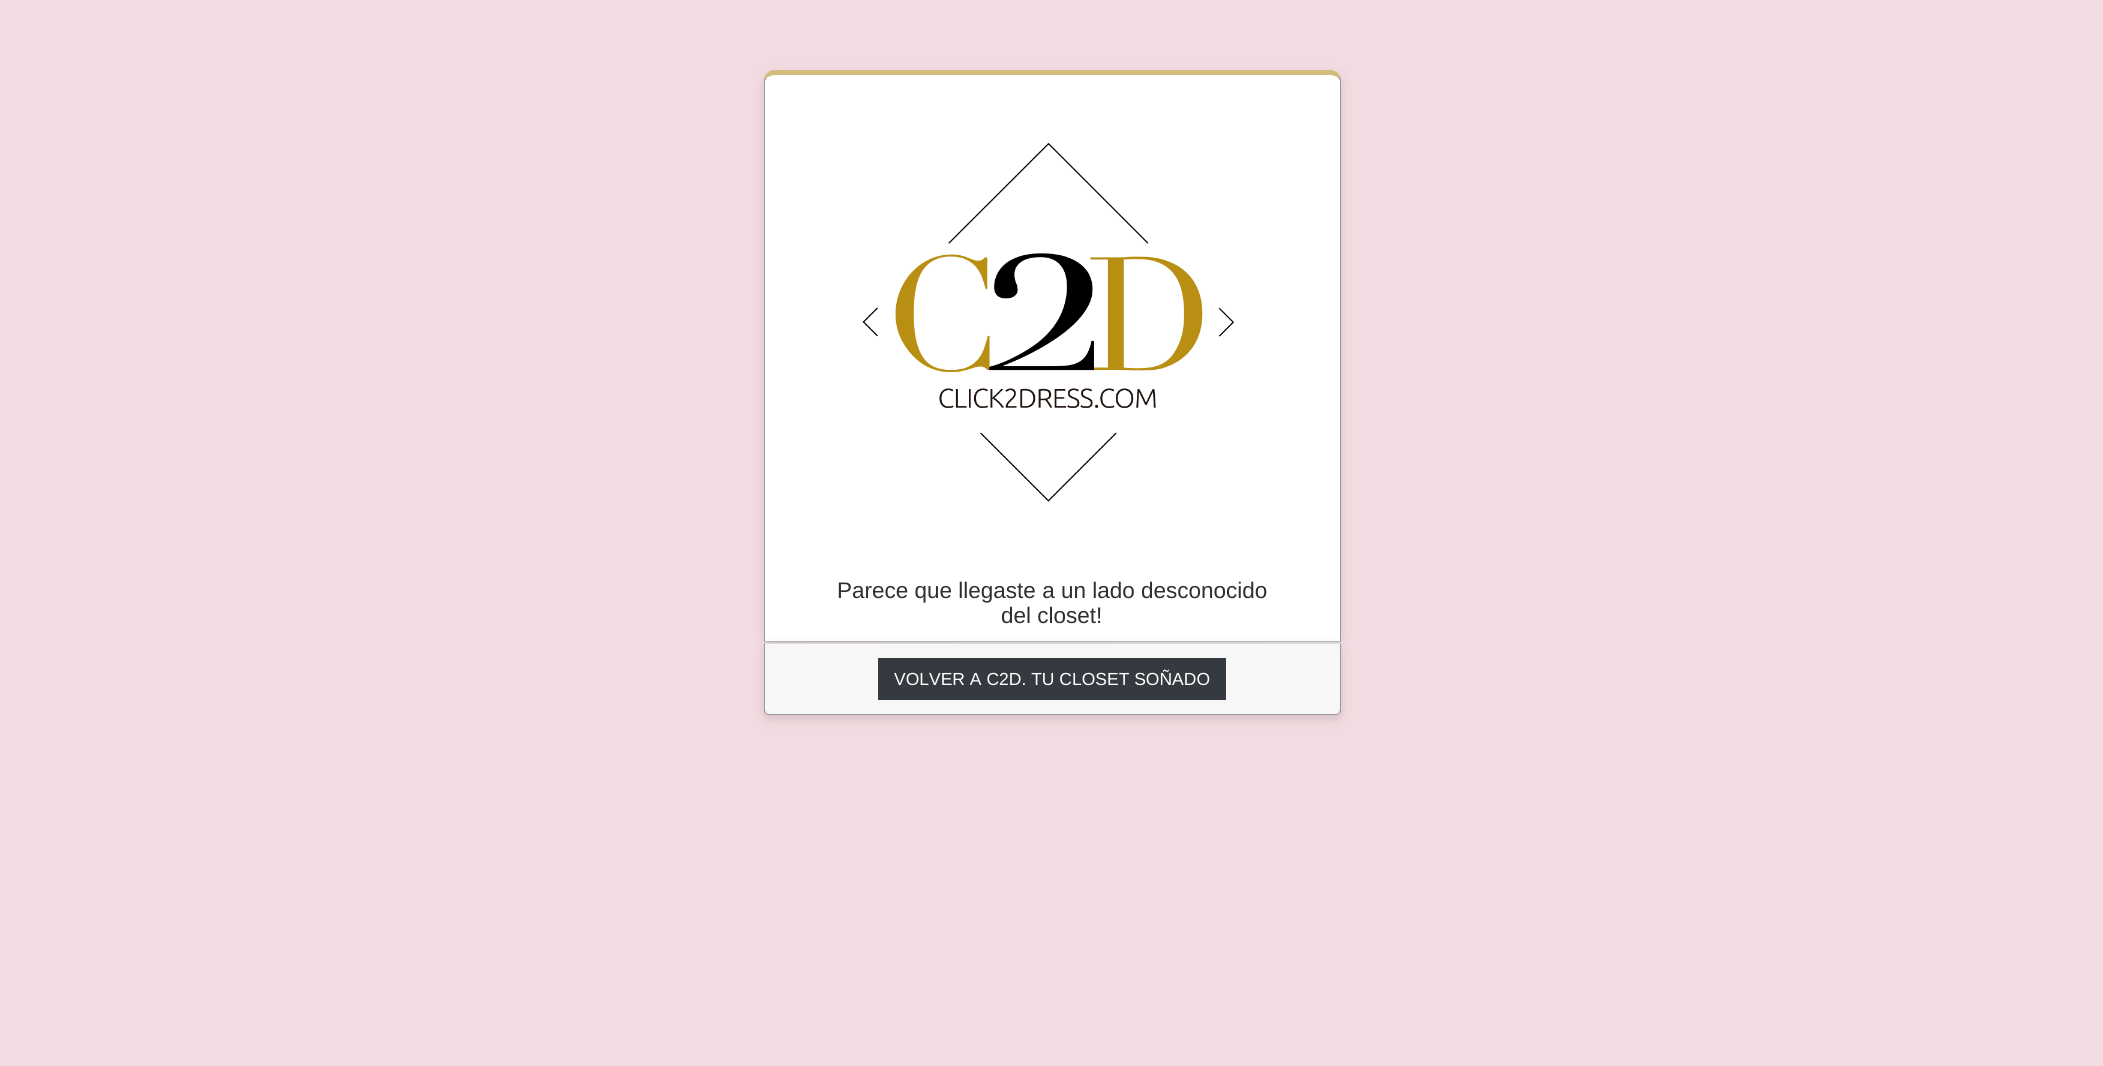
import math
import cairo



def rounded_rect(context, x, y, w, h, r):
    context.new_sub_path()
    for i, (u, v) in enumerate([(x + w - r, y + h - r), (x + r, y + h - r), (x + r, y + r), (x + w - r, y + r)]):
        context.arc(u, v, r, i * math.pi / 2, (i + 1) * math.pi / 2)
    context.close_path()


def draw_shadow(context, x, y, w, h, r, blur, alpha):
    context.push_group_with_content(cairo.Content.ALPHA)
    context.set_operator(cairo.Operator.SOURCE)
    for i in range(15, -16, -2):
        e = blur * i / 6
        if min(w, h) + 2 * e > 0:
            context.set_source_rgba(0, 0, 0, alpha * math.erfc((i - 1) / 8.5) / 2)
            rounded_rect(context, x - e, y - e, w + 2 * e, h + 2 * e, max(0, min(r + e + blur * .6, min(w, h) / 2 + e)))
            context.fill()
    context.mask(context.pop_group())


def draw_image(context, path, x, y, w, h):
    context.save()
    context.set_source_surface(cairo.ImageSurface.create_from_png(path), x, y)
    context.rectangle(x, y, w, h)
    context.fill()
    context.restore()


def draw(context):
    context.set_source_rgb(243 / 255, 220 / 255, 225 / 255)
    context.paint()
    context.set_source_rgb(50 / 255, 50 / 255, 50 / 255)
    draw_shadow(context, 764, 74, 577, 572, 11, 5, 0.17)
    context.set_source_rgb(1, 1, 1)
    context.new_path()
    context.move_to(775, 75)
    context.line_to(1330, 75)
    context.curve_to(1336, 75, 1340, 78, 1340, 81)
    context.line_to(1340, 641)
    context.line_to(765, 641)
    context.line_to(765, 81)
    context.curve_to(765, 78, 769, 75, 775, 75)
    context.close_path()
    context.fill()
    context.set_source_rgb(211 / 255, 188 / 255, 125 / 255)
    context.new_path()
    context.move_to(775, 70)
    context.curve_to(771, 70, 767, 72, 765, 76)
    context.line_to(766, 79)
    context.curve_to(767, 77, 771, 75, 775, 75)
    context.line_to(1330, 75)
    context.curve_to(1334, 75, 1338, 77, 1339, 79)
    context.line_to(1340, 76)
    context.curve_to(1338, 72, 1334, 70, 1330, 70)
    context.close_path()
    context.fill()
    context.set_source_rgb(153 / 255, 153 / 255, 153 / 255)
    context.new_path()
    context.move_to(1340, 76)
    context.line_to(1341, 81)
    context.line_to(1341, 642)
    context.line_to(1340, 641)
    context.line_to(1340, 81)
    context.line_to(1339, 79)
    context.close_path()
    context.fill()
    context.set_source_rgb(187 / 255, 187 / 255, 187 / 255)
    context.new_path()
    context.move_to(1341, 642)
    context.line_to(764, 642)
    context.line_to(765, 641)
    context.line_to(1340, 641)
    context.close_path()
    context.fill()
    context.set_source_rgb(153 / 255, 153 / 255, 153 / 255)
    context.new_path()
    context.move_to(765, 76)
    context.line_to(764, 81)
    context.line_to(764, 642)
    context.line_to(765, 641)
    context.line_to(765, 81)
    context.line_to(766, 79)
    context.close_path()
    context.fill()
    draw_image(context, "images/1.png", 862, 142, 372, 360)
    context.set_source_rgb(50 / 255, 50 / 255, 50 / 255)
    draw_shadow(context, 764, 646, 577, 73, 5, 5, 0.17)
    context.set_source_rgb(247 / 255, 247 / 255, 247 / 255)
    context.new_path()
    context.move_to(764, 643)
    context.line_to(1341, 643)
    context.line_to(1341, 710)
    context.curve_to(1341, 713, 1339, 715, 1336, 715)
    context.line_to(769, 715)
    context.curve_to(766, 715, 764, 713, 764, 710)
    context.close_path()
    context.fill()
    context.set_source_rgb(218 / 255, 218 / 255, 218 / 255)
    context.new_path()
    context.move_to(764, 643)
    context.line_to(1341, 642)
    context.line_to(1340, 644)
    context.line_to(765, 644)
    context.close_path()
    context.fill()
    context.set_source_rgb(153 / 255, 153 / 255, 153 / 255)
    context.new_path()
    context.move_to(1341, 643)
    context.line_to(1341, 710)
    context.curve_to(1341, 711, 1341, 713, 1340, 713)
    context.line_to(1339, 713)
    context.line_to(1340, 710)
    context.line_to(1340, 644)
    context.close_path()
    context.fill()
    context.new_path()
    context.move_to(769, 715)
    context.line_to(1336, 715)
    context.curve_to(1338, 715, 1339, 714, 1340, 713)
    context.line_to(1339, 713)
    context.curve_to(1338, 713, 1337, 714, 1336, 714)
    context.line_to(769, 714)
    context.curve_to(768, 714, 767, 713, 766, 713)
    context.line_to(765, 713)
    context.curve_to(766, 714, 767, 715, 769, 715)
    context.close_path()
    context.fill()
    context.new_path()
    context.move_to(765, 644)
    context.line_to(765, 710)
    context.line_to(766, 713)
    context.line_to(765, 713)
    context.curve_to(764, 713, 764, 711, 764, 710)
    context.line_to(764, 643)
    context.close_path()
    context.fill()
    context.set_source_rgb(52 / 255, 58 / 255, 64 / 255)
    context.rectangle(878, 658, 348, 42)
    context.fill()
    context.select_font_face("Liberation Sans")
    context.set_font_size(22.5)
    context.set_source_rgb(46 / 255, 47 / 255, 48 / 255)
    context.move_to(837, 598)
    context.show_text("Parece que llegaste a un lado desconocido")
    context.move_to(1001, 623)
    context.show_text("del closet!")
    context.set_font_size(17.5)
    context.set_source_rgb(1, 1, 1)
    context.move_to(894, 685)
    context.show_text("VOLVER A C2D. TU CLOSET SOÑADO")


surface = cairo.ImageSurface(cairo.Format.RGB24, 2103, 1066)
context = cairo.Context(surface)
options = cairo.FontOptions()
options.set_hint_metrics(cairo.HintMetrics.OFF)
options.set_hint_style(cairo.HintStyle.NONE)
context.set_font_options(options)
context.set_miter_limit(4)
draw(context)
surface.write_to_png("out.png")
